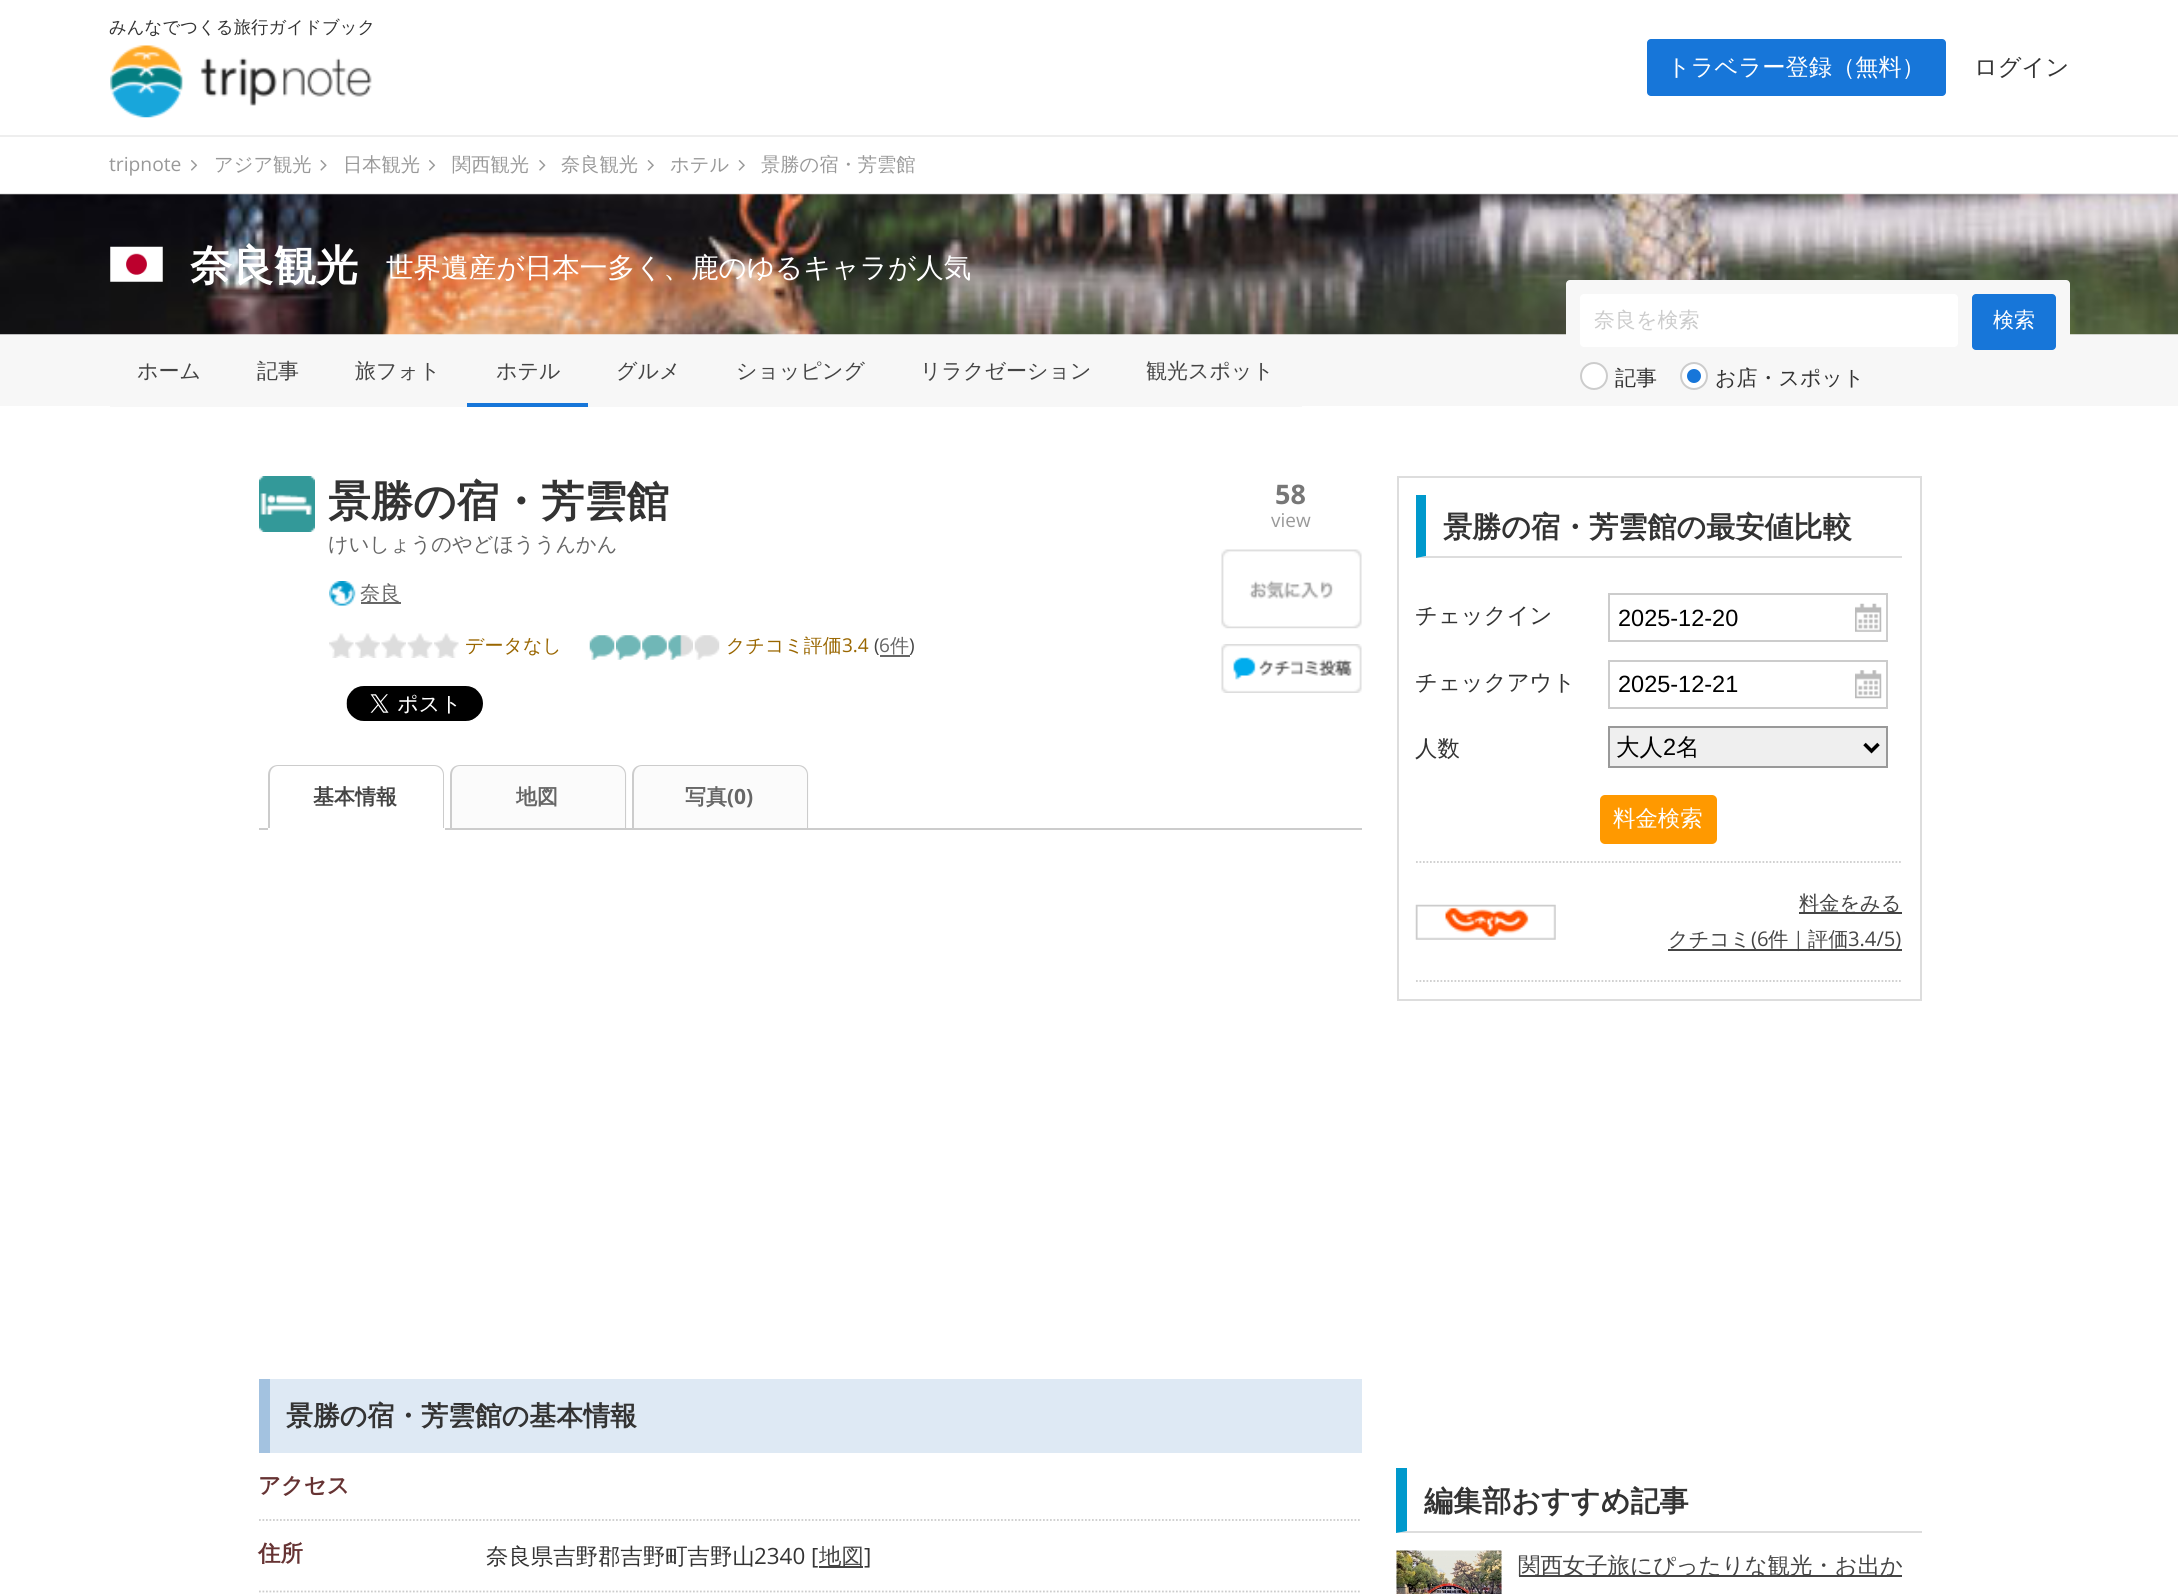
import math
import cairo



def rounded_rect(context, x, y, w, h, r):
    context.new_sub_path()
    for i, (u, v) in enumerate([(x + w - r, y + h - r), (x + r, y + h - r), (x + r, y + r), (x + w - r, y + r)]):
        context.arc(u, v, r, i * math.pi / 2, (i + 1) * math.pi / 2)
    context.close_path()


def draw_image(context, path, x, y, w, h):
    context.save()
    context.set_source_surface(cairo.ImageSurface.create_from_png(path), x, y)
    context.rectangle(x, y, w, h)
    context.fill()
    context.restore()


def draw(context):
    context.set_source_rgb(1, 1, 1)
    context.paint()
    draw_image(context, "images/1.png", 110, 45, 262, 73)
    context.set_source_rgb(23 / 255, 118 / 255, 217 / 255)
    rounded_rect(context, 1647, 39, 299, 57, 4)
    context.fill()
    context.set_source_rgb(238 / 255, 238 / 255, 238 / 255)
    context.rectangle(0, 135, 2178, 2)
    context.fill()
    context.rectangle(0, 193, 2178, 2)
    context.fill()
    draw_image(context, "images/2.png", 191, 160, 7, 11)
    draw_image(context, "images/3.png", 320, 160, 7, 11)
    draw_image(context, "images/2.png", 429, 160, 7, 11)
    draw_image(context, "images/4.png", 539, 160, 7, 11)
    draw_image(context, "images/5.png", 647, 160, 7, 11)
    draw_image(context, "images/5.png", 738, 160, 7, 11)
    context.set_source_rgb(247 / 255, 247 / 255, 247 / 255)
    context.rectangle(0, 334, 2178, 72)
    context.fill()
    draw_image(context, "images/6.png", 0, 194, 2178, 141)
    draw_image(context, "images/7.png", 110, 246, 53, 36)
    context.rectangle(110, 406, 357, 1)
    context.fill()
    context.set_source_rgb(23 / 255, 118 / 255, 217 / 255)
    context.rectangle(467, 403, 121, 4)
    context.fill()
    context.set_source_rgb(247 / 255, 247 / 255, 247 / 255)
    context.rectangle(588, 406, 714, 1)
    context.fill()
    rounded_rect(context, 1566, 280, 504, 124, 4)
    context.fill()
    context.set_source_rgb(1, 1, 1)
    rounded_rect(context, 1580, 294, 378, 53, 4)
    context.fill()
    context.set_source_rgb(23 / 255, 118 / 255, 217 / 255)
    rounded_rect(context, 1972, 294, 84, 56, 4)
    context.fill()
    context.set_source_rgb(1, 1, 1)
    context.arc(1594, 376, 13, 0, 2 * math.pi)
    context.fill_preserve()
    context.set_source_rgb(204 / 255, 204 / 255, 204 / 255)
    context.stroke()
    context.set_source_rgb(1, 1, 1)
    context.arc(1694, 376, 13, 0, 2 * math.pi)
    context.fill_preserve()
    context.set_source_rgb(204 / 255, 204 / 255, 204 / 255)
    context.stroke()
    context.set_source_rgb(23 / 255, 118 / 255, 217 / 255)
    context.arc(1694, 376, 7, 0, 2 * math.pi)
    context.fill()
    draw_image(context, "images/8.png", 259, 476, 56, 56)
    draw_image(context, "images/9.png", 329, 581, 27, 25)
    context.set_source_rgb(102 / 255, 102 / 255, 102 / 255)
    context.rectangle(361, 602, 40, 2)
    context.fill()
    draw_image(context, "images/10.png", 329, 633, 25, 25)
    draw_image(context, "images/11.png", 355, 633, 25, 25)
    draw_image(context, "images/12.png", 381, 633, 25, 25)
    draw_image(context, "images/13.png", 407, 633, 26, 25)
    draw_image(context, "images/14.png", 434, 633, 25, 25)
    draw_image(context, "images/15.png", 589, 635, 26, 25)
    draw_image(context, "images/16.png", 616, 635, 25, 25)
    draw_image(context, "images/17.png", 642, 635, 25, 25)
    draw_image(context, "images/18.png", 668, 635, 25, 25)
    draw_image(context, "images/19.png", 694, 635, 26, 25)
    context.rectangle(880, 655, 30, 2)
    context.fill()
    draw_image(context, "images/20.png", 346, 686, 137, 35)
    draw_image(context, "images/21.png", 1221, 549, 141, 80)
    draw_image(context, "images/22.png", 1221, 644, 141, 49)
    context.set_source_rgb(204 / 255, 204 / 255, 204 / 255)
    context.rectangle(259, 828, 1103, 2)
    context.fill()
    context.set_source_rgb(1, 1, 1)
    context.new_path()
    context.move_to(268, 828)
    context.line_to(268, 831)
    context.line_to(445, 831)
    context.line_to(445, 779)
    context.line_to(444, 776)
    context.line_to(444, 828)
    context.close_path()
    context.fill()
    context.set_source_rgb(204 / 255, 204 / 255, 204 / 255)
    context.set_fill_rule(cairo.FillRule.EVEN_ODD)
    context.new_path()
    context.move_to(278, 765)
    context.line_to(434, 765)
    context.curve_to(440, 765, 444, 769, 444, 775)
    context.line_to(444, 828)
    context.line_to(268, 828)
    context.line_to(268, 775)
    context.curve_to(268, 769, 272, 765, 278, 765)
    context.close_path()
    context.move_to(278, 766)
    context.line_to(434, 766)
    context.curve_to(439, 766, 443, 770, 443, 775)
    context.line_to(443, 828)
    context.line_to(270, 828)
    context.line_to(270, 775)
    context.curve_to(270, 770, 273, 766, 278, 766)
    context.close_path()
    context.fill()
    context.set_source_rgb(251 / 255, 251 / 255, 251 / 255)
    context.new_path()
    context.move_to(461, 765)
    context.line_to(616, 765)
    context.curve_to(622, 765, 627, 770, 627, 776)
    context.line_to(627, 828)
    context.line_to(450, 828)
    context.line_to(450, 776)
    context.curve_to(450, 770, 455, 765, 461, 765)
    context.close_path()
    context.fill()
    context.set_source_rgb(204 / 255, 204 / 255, 204 / 255)
    context.new_path()
    context.move_to(460, 765)
    context.line_to(616, 765)
    context.curve_to(622, 765, 626, 769, 626, 775)
    context.line_to(626, 828)
    context.line_to(450, 828)
    context.line_to(450, 775)
    context.curve_to(450, 769, 454, 765, 460, 765)
    context.close_path()
    context.move_to(460, 766)
    context.line_to(616, 766)
    context.curve_to(621, 766, 625, 770, 625, 775)
    context.line_to(625, 828)
    context.line_to(452, 828)
    context.line_to(452, 775)
    context.curve_to(452, 770, 455, 766, 460, 766)
    context.close_path()
    context.fill()
    context.set_source_rgb(251 / 255, 251 / 255, 251 / 255)
    context.new_path()
    context.move_to(643, 765)
    context.line_to(798, 765)
    context.curve_to(804, 765, 809, 770, 809, 776)
    context.line_to(809, 828)
    context.line_to(632, 828)
    context.line_to(632, 776)
    context.curve_to(632, 770, 637, 765, 643, 765)
    context.close_path()
    context.fill()
    context.set_source_rgb(204 / 255, 204 / 255, 204 / 255)
    context.new_path()
    context.move_to(642, 765)
    context.line_to(798, 765)
    context.curve_to(804, 765, 808, 769, 808, 775)
    context.line_to(808, 828)
    context.line_to(632, 828)
    context.line_to(632, 775)
    context.curve_to(632, 769, 636, 765, 642, 765)
    context.close_path()
    context.move_to(642, 766)
    context.line_to(798, 766)
    context.curve_to(803, 766, 807, 770, 807, 775)
    context.line_to(807, 828)
    context.line_to(634, 828)
    context.line_to(634, 775)
    context.curve_to(634, 770, 637, 766, 642, 766)
    context.close_path()
    context.fill()
    context.set_source_rgb(222 / 255, 233 / 255, 244 / 255)
    context.rectangle(270, 1379, 1092, 74)
    context.fill()
    context.set_source_rgb(163 / 255, 194 / 255, 224 / 255)
    context.rectangle(259, 1379, 11, 74)
    context.fill()
    context.new_path()
    context.move_to(259, 1520)
    context.line_to(1361.5, 1520)
    context.set_source_rgb(204 / 255, 204 / 255, 204 / 255)
    context.set_line_width(1.8)
    context.set_dash([1.75, 1.75])
    context.stroke()
    context.new_path()
    context.move_to(259, 1591.5)
    context.line_to(1361.5, 1591.5)
    context.stroke()
    context.set_source_rgb(68 / 255, 68 / 255, 68 / 255)
    context.rectangle(819, 1566, 44, 2)
    context.fill()
    context.rectangle(1398, 477, 523, 523)
    context.set_source_rgb(221 / 255, 221 / 255, 221 / 255)
    context.set_line_width(2)
    context.set_dash([])
    context.stroke()
    context.set_fill_rule(cairo.FillRule.WINDING)
    context.new_path()
    context.move_to(1902, 558)
    context.line_to(1416, 558)
    context.line_to(1426, 556)
    context.line_to(1902, 556)
    context.close_path()
    context.fill()
    context.set_source_rgb(0, 153 / 255, 204 / 255)
    context.new_path()
    context.move_to(1416, 558)
    context.line_to(1416, 495)
    context.line_to(1426, 495)
    context.line_to(1426, 556)
    context.close_path()
    context.fill()
    draw_image(context, "images/23.png", 1855, 603, 27, 29)
    context.rectangle(1609, 594, 278, 47)
    context.set_source_rgb(204 / 255, 204 / 255, 204 / 255)
    context.stroke()
    draw_image(context, "images/24.png", 1855, 670, 27, 29)
    context.rectangle(1609, 661, 278, 47)
    context.stroke()
    context.set_source_rgb(239 / 255, 239 / 255, 239 / 255)
    context.rectangle(1609, 727, 278, 40)
    context.fill_preserve()
    context.set_source_rgb(153 / 255, 153 / 255, 153 / 255)
    context.stroke()
    context.new_path()
    context.move_to(1864.5, 744)
    context.line_to(1871.5, 751)
    context.line_to(1878.5, 744)
    context.set_source_rgb(0, 0, 0)
    context.set_line_width(3.5)
    context.stroke()
    context.set_source_rgb(1, 153 / 255, 0)
    rounded_rect(context, 1600, 795, 117, 49, 5)
    context.fill()
    context.new_path()
    context.move_to(1416, 862)
    context.line_to(1902, 862)
    context.set_source_rgb(204 / 255, 204 / 255, 204 / 255)
    context.set_line_width(1.8)
    context.set_dash([1.75, 1.75])
    context.stroke()
    context.new_path()
    context.move_to(1416, 981)
    context.line_to(1902, 981)
    context.stroke()
    draw_image(context, "images/25.png", 1415, 904, 141, 36)
    context.set_source_rgb(68 / 255, 68 / 255, 68 / 255)
    context.rectangle(1799, 912, 103, 2)
    context.fill()
    context.rectangle(1668, 949, 234, 2)
    context.fill()
    context.set_source_rgb(221 / 255, 221 / 255, 221 / 255)
    context.new_path()
    context.move_to(1922, 1533)
    context.line_to(1396, 1533)
    context.line_to(1407, 1531)
    context.line_to(1922, 1531)
    context.close_path()
    context.fill()
    context.set_source_rgb(0, 153 / 255, 204 / 255)
    context.new_path()
    context.move_to(1396, 1533)
    context.line_to(1396, 1468)
    context.line_to(1407, 1468)
    context.line_to(1407, 1531)
    context.close_path()
    context.fill()
    draw_image(context, "images/26.png", 1396, 1550, 106, 44)
    context.set_source_rgb(68 / 255, 68 / 255, 68 / 255)
    context.rectangle(1519, 1575, 383, 2)
    context.fill()
    context.select_font_face("WenQuanYi Zen Hei Medium")
    context.set_font_size(17.4)
    context.set_source_rgb(51 / 255, 51 / 255, 51 / 255)
    context.move_to(109, 33)
    context.show_text("みんなでつくる旅行ガイドブック")
    context.set_font_size(23.25)
    context.set_source_rgb(1, 1, 1)
    context.move_to(1667, 75)
    context.show_text("トラベラー登録（無料）")
    context.set_source_rgb(51 / 255, 51 / 255, 51 / 255)
    context.move_to(1974, 75)
    context.show_text("ログイン")
    context.select_font_face("Open Sans")
    context.set_font_size(19.25)
    context.set_source_rgb(153 / 255, 153 / 255, 153 / 255)
    context.move_to(109, 171)
    context.show_text("tripnote")
    context.select_font_face("WenQuanYi Zen Hei Medium")
    context.move_to(214, 171)
    context.show_text("アジア観光")
    context.move_to(343, 171)
    context.show_text("日本観光")
    context.move_to(452, 171)
    context.show_text("関西観光")
    context.move_to(561, 171)
    context.show_text("奈良観光")
    context.move_to(670, 171)
    context.show_text("ホテル")
    context.move_to(761, 171)
    context.show_text("景勝の宿・芳雲館")
    context.select_font_face("WenQuanYi Zen Hei", cairo.FontSlant.NORMAL, cairo.FontWeight.BOLD)
    context.set_font_size(42)
    context.set_source_rgb(1, 1, 1)
    context.move_to(190, 280)
    context.show_text("奈良観光")
    context.select_font_face("WenQuanYi Zen Hei Medium")
    context.set_font_size(27.6)
    context.move_to(386, 277)
    context.show_text("世界遺産が日本一多く、鹿のゆるキャラが人気")
    context.set_font_size(21)
    context.set_source_rgb(68 / 255, 68 / 255, 68 / 255)
    context.move_to(137, 378)
    context.show_text("ホーム")
    context.move_to(257, 378)
    context.show_text("記事")
    context.move_to(355, 378)
    context.show_text("旅フォト")
    context.move_to(496, 378)
    context.show_text("ホテル")
    context.move_to(616, 378)
    context.show_text("グルメ")
    context.move_to(736, 378)
    context.show_text("ショッピング")
    context.move_to(920, 378)
    context.show_text("リラクゼーション")
    context.move_to(1146, 378)
    context.show_text("観光スポット")
    context.set_source_rgb(204 / 255, 204 / 255, 204 / 255)
    context.move_to(1594, 327)
    context.show_text("奈良を検索")
    context.set_source_rgb(1, 1, 1)
    context.move_to(1993, 327)
    context.show_text("検索")
    context.set_source_rgb(51 / 255, 51 / 255, 51 / 255)
    context.move_to(1615, 385)
    context.show_text("記事")
    context.move_to(1715, 385)
    context.show_text("お店・スポット")
    context.select_font_face("WenQuanYi Zen Hei", cairo.FontSlant.NORMAL, cairo.FontWeight.BOLD)
    context.set_font_size(42.5)
    context.move_to(328, 516)
    context.show_text("景勝の宿・芳雲館")
    context.select_font_face("WenQuanYi Zen Hei Medium")
    context.set_font_size(20.2)
    context.set_source_rgb(102 / 255, 102 / 255, 102 / 255)
    context.move_to(328, 551)
    context.show_text("けいしょうのやどほううんかん")
    context.move_to(360, 600)
    context.show_text("奈良")
    context.set_font_size(19)
    context.set_source_rgb(153 / 255, 102 / 255, 0)
    context.move_to(465, 652)
    context.show_text("データなし")
    context.move_to(726, 652)
    context.show_text("クチコミ評価")
    context.select_font_face("Open Sans")
    context.move_to(842, 652)
    context.show_text("3.4")
    context.set_source_rgb(68 / 255, 68 / 255, 68 / 255)
    context.move_to(874, 652)
    context.show_text("(")
    context.set_source_rgb(102 / 255, 102 / 255, 102 / 255)
    context.move_to(879, 652)
    context.show_text("6")
    context.select_font_face("WenQuanYi Zen Hei Medium")
    context.move_to(890, 652)
    context.show_text("件")
    context.select_font_face("Open Sans")
    context.set_source_rgb(68 / 255, 68 / 255, 68 / 255)
    context.move_to(909, 652)
    context.show_text(")")
    context.select_font_face("Open Sans", cairo.FontSlant.NORMAL, cairo.FontWeight.BOLD)
    context.set_font_size(26.9)
    context.set_source_rgb(119 / 255, 119 / 255, 119 / 255)
    context.move_to(1275, 504)
    context.show_text("58")
    context.select_font_face("Open Sans")
    context.set_font_size(19)
    context.set_source_rgb(153 / 255, 153 / 255, 153 / 255)
    context.move_to(1271, 527)
    context.show_text("view")
    context.select_font_face("WenQuanYi Zen Hei", cairo.FontSlant.NORMAL, cairo.FontWeight.BOLD)
    context.set_font_size(21)
    context.set_source_rgb(68 / 255, 68 / 255, 68 / 255)
    context.move_to(313, 804)
    context.show_text("基本情報")
    context.set_source_rgb(102 / 255, 102 / 255, 102 / 255)
    context.move_to(516, 804)
    context.show_text("地図")
    context.move_to(685, 804)
    context.show_text("写真")
    context.select_font_face("Open Sans", cairo.FontSlant.NORMAL, cairo.FontWeight.BOLD)
    context.move_to(727, 804)
    context.show_text("(0)")
    context.select_font_face("WenQuanYi Zen Hei", cairo.FontSlant.NORMAL, cairo.FontWeight.BOLD)
    context.set_font_size(26.9)
    context.set_source_rgb(51 / 255, 51 / 255, 51 / 255)
    context.move_to(286, 1425)
    context.show_text("景勝の宿・芳雲館の基本情報")
    context.set_font_size(22.4)
    context.set_source_rgb(102 / 255, 51 / 255, 51 / 255)
    context.move_to(258, 1493)
    context.show_text("アクセス")
    context.move_to(258, 1561)
    context.show_text("住所")
    context.select_font_face("WenQuanYi Zen Hei Medium")
    context.set_source_rgb(51 / 255, 51 / 255, 51 / 255)
    context.move_to(486, 1564)
    context.show_text("奈良県吉野郡吉野町吉野山")
    context.select_font_face("Open Sans")
    context.move_to(754, 1564)
    context.show_text("2340 [")
    context.select_font_face("WenQuanYi Zen Hei Medium")
    context.set_source_rgb(68 / 255, 68 / 255, 68 / 255)
    context.move_to(819, 1564)
    context.show_text("地図")
    context.select_font_face("Open Sans")
    context.set_source_rgb(51 / 255, 51 / 255, 51 / 255)
    context.move_to(864, 1564)
    context.show_text("]")
    context.select_font_face("WenQuanYi Zen Hei", cairo.FontSlant.NORMAL, cairo.FontWeight.BOLD)
    context.set_font_size(29.1)
    context.move_to(1443, 537)
    context.show_text("景勝の宿・芳雲館の最安値比較")
    context.select_font_face("WenQuanYi Zen Hei Medium")
    context.set_font_size(22.4)
    context.move_to(1415, 623)
    context.show_text("チェックイン")
    context.select_font_face("Liberation Sans")
    context.set_font_size(23.5)
    context.set_source_rgb(0, 0, 0)
    context.move_to(1618, 626)
    context.show_text("2025-12-20")
    context.select_font_face("WenQuanYi Zen Hei Medium")
    context.set_font_size(22.4)
    context.set_source_rgb(51 / 255, 51 / 255, 51 / 255)
    context.move_to(1415, 690)
    context.show_text("チェックアウト")
    context.select_font_face("Liberation Sans")
    context.set_font_size(23.5)
    context.set_source_rgb(0, 0, 0)
    context.move_to(1618, 692)
    context.show_text("2025-12-21")
    context.select_font_face("WenQuanYi Zen Hei Medium")
    context.set_font_size(22.4)
    context.set_source_rgb(51 / 255, 51 / 255, 51 / 255)
    context.move_to(1415, 756)
    context.show_text("人数")
    context.set_font_size(23.5)
    context.set_source_rgb(0, 0, 0)
    context.move_to(1616, 755)
    context.show_text("大人")
    context.select_font_face("Liberation Sans")
    context.move_to(1663, 755)
    context.show_text("2")
    context.select_font_face("WenQuanYi Zen Hei Medium")
    context.move_to(1676, 755)
    context.show_text("名")
    context.set_font_size(22.4)
    context.set_source_rgb(1, 1, 1)
    context.move_to(1613, 826)
    context.show_text("料金検索")
    context.set_font_size(20.2)
    context.set_source_rgb(68 / 255, 68 / 255, 68 / 255)
    context.move_to(1799, 910)
    context.show_text("料金をみる")
    context.move_to(1668, 946)
    context.show_text("クチコミ")
    context.select_font_face("Open Sans")
    context.move_to(1751, 946)
    context.show_text("(6")
    context.select_font_face("WenQuanYi Zen Hei Medium")
    context.move_to(1768, 946)
    context.show_text("件｜評価")
    context.select_font_face("Open Sans")
    context.move_to(1848, 946)
    context.show_text("3.4/5)")
    context.select_font_face("WenQuanYi Zen Hei", cairo.FontSlant.NORMAL, cairo.FontWeight.BOLD)
    context.set_font_size(29.1)
    context.set_source_rgb(51 / 255, 51 / 255, 51 / 255)
    context.move_to(1424, 1511)
    context.show_text("編集部おすすめ記事")
    context.select_font_face("WenQuanYi Zen Hei Medium")
    context.set_font_size(22.4)
    context.set_source_rgb(68 / 255, 68 / 255, 68 / 255)
    context.move_to(1518, 1573)
    context.show_text("関西女子旅にぴったりな観光・お出か")


surface = cairo.ImageSurface(cairo.Format.RGB24, 2178, 1594)
context = cairo.Context(surface)
options = cairo.FontOptions()
options.set_hint_metrics(cairo.HintMetrics.OFF)
options.set_hint_style(cairo.HintStyle.NONE)
context.set_font_options(options)
context.set_miter_limit(4)
draw(context)
surface.write_to_png("out.png")
